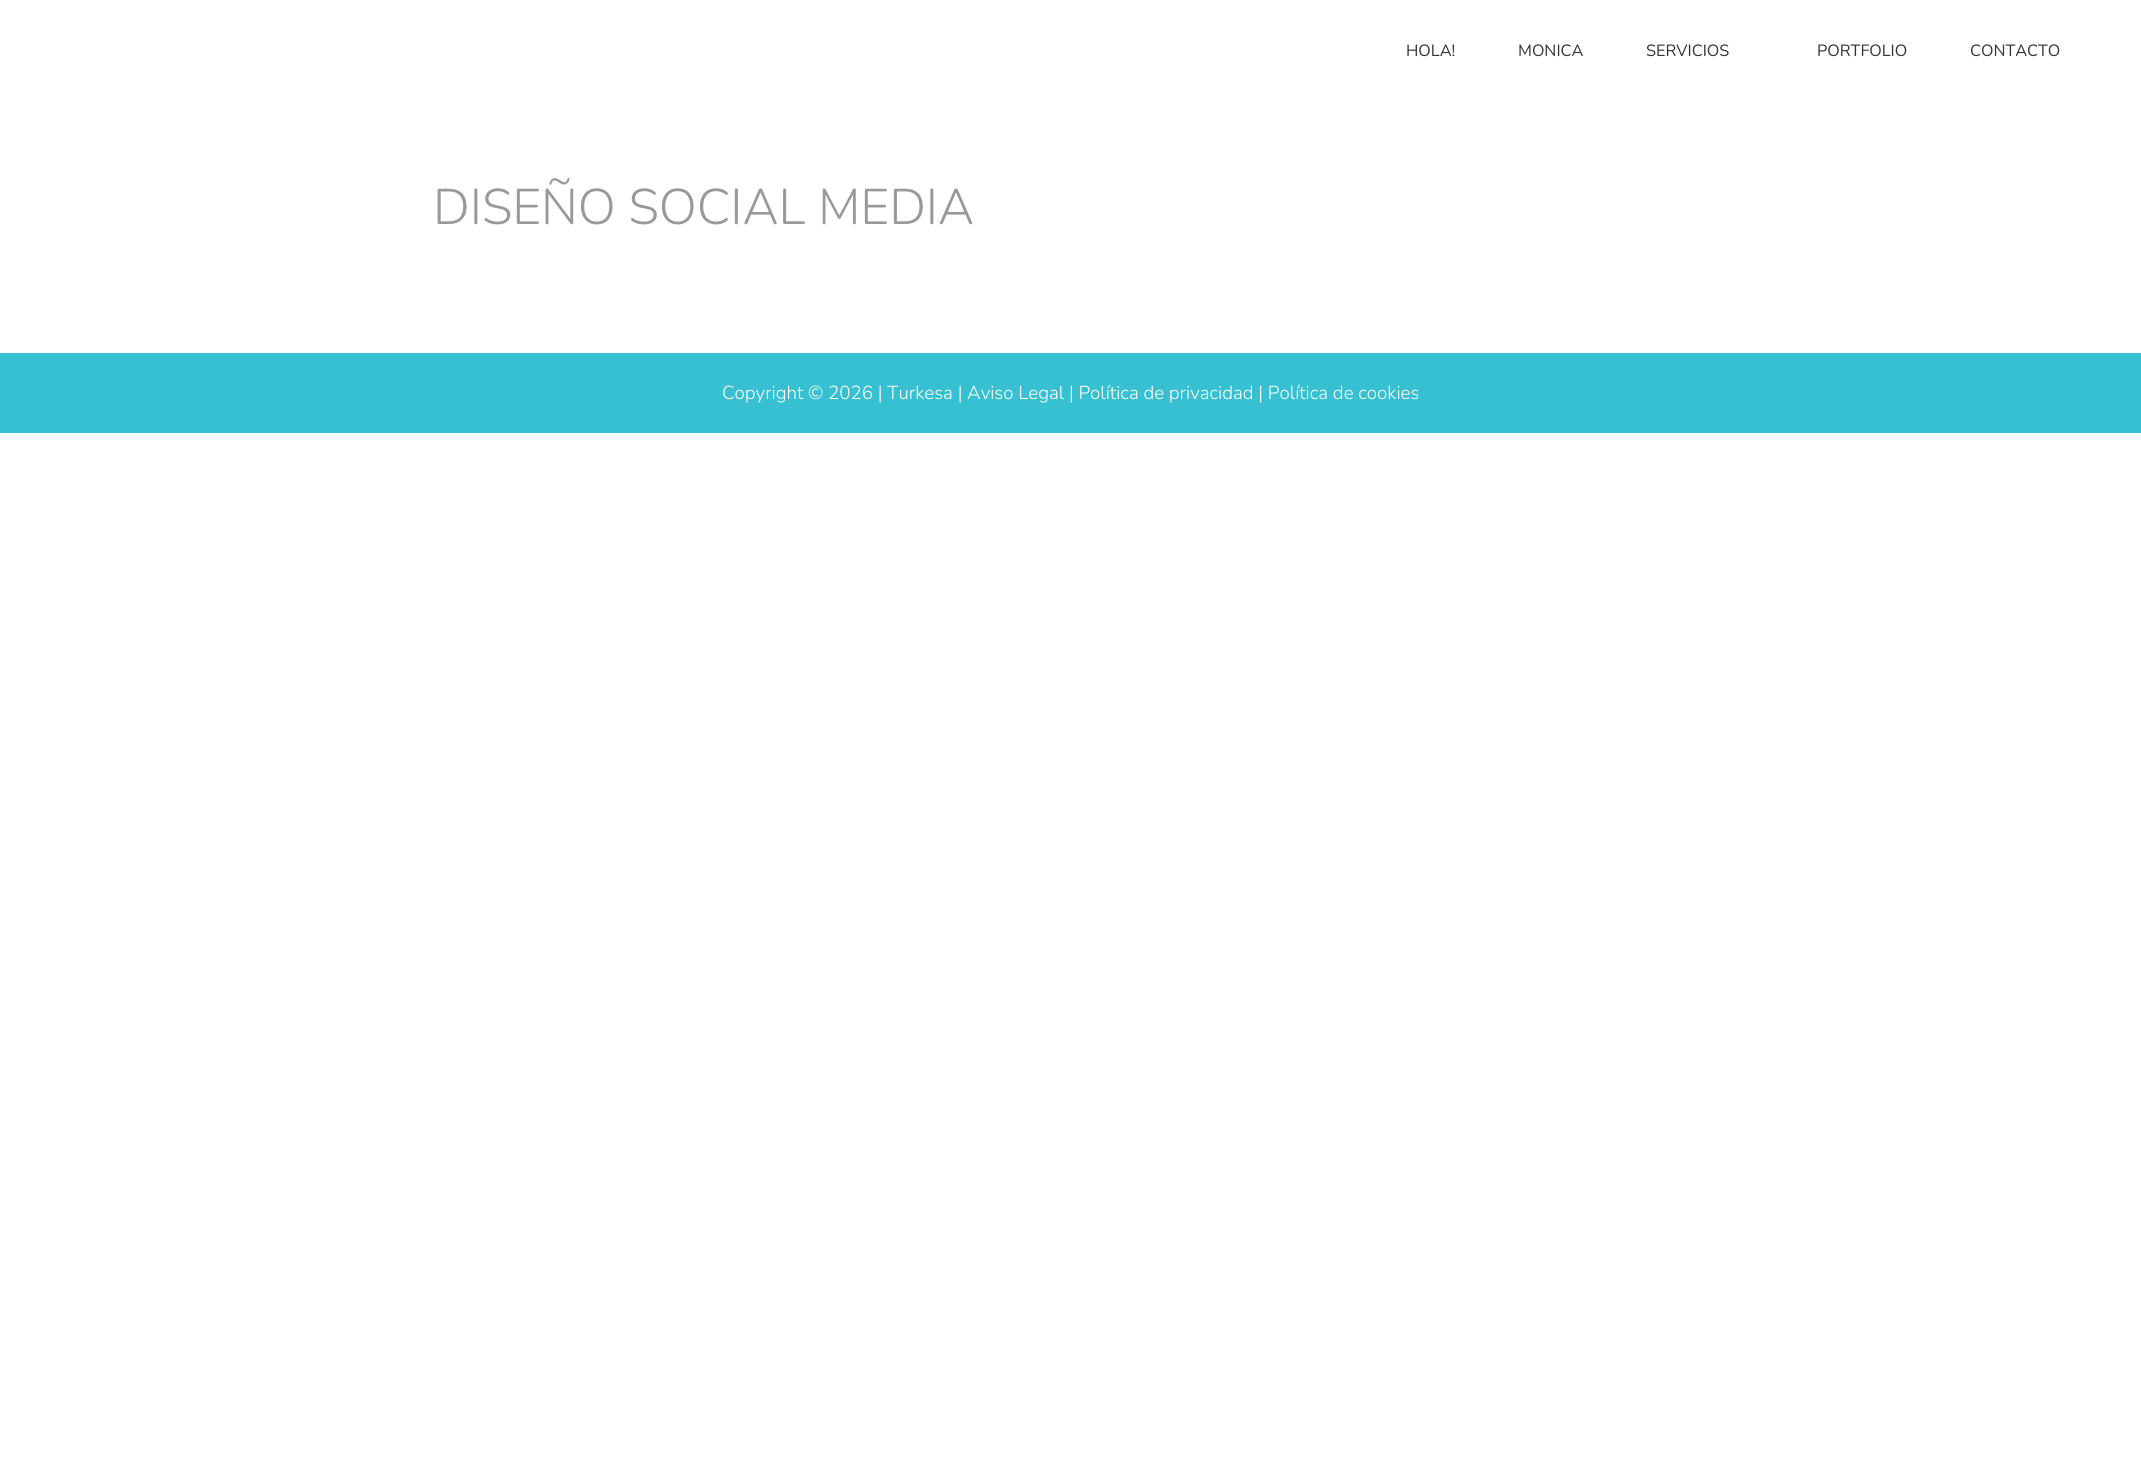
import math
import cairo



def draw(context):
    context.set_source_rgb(1, 1, 1)
    context.paint()
    context.set_source_rgb(55 / 255, 192 / 255, 209 / 255)
    context.rectangle(0, 353, 2141, 80)
    context.fill()
    context.select_font_face("Nunito")
    context.set_font_size(16.25)
    context.set_source_rgb(51 / 255, 51 / 255, 51 / 255)
    context.move_to(1406, 56)
    context.show_text("HOLA!")
    context.move_to(1518, 56)
    context.show_text("MONICA")
    context.move_to(1646, 56)
    context.show_text("SERVICIOS")
    context.move_to(1817, 56)
    context.show_text("PORTFOLIO")
    context.move_to(1970, 56)
    context.show_text("CONTACTO")
    context.select_font_face("Nunito Light")
    context.set_font_size(50)
    context.set_source_rgb(153 / 255, 153 / 255, 153 / 255)
    context.move_to(433, 224)
    context.show_text("DISEÑO SOCIAL MEDIA")
    context.set_font_size(18.75)
    context.set_source_rgb(1, 1, 1)
    context.move_to(722, 399)
    context.show_text("Copyright © 2026 | Turkesa | Aviso Legal | Política de privacidad | Política de cookies")


surface = cairo.ImageSurface(cairo.Format.RGB24, 2141, 1468)
context = cairo.Context(surface)
options = cairo.FontOptions()
options.set_hint_metrics(cairo.HintMetrics.OFF)
options.set_hint_style(cairo.HintStyle.NONE)
context.set_font_options(options)
context.set_miter_limit(4)
draw(context)
surface.write_to_png("out.png")
